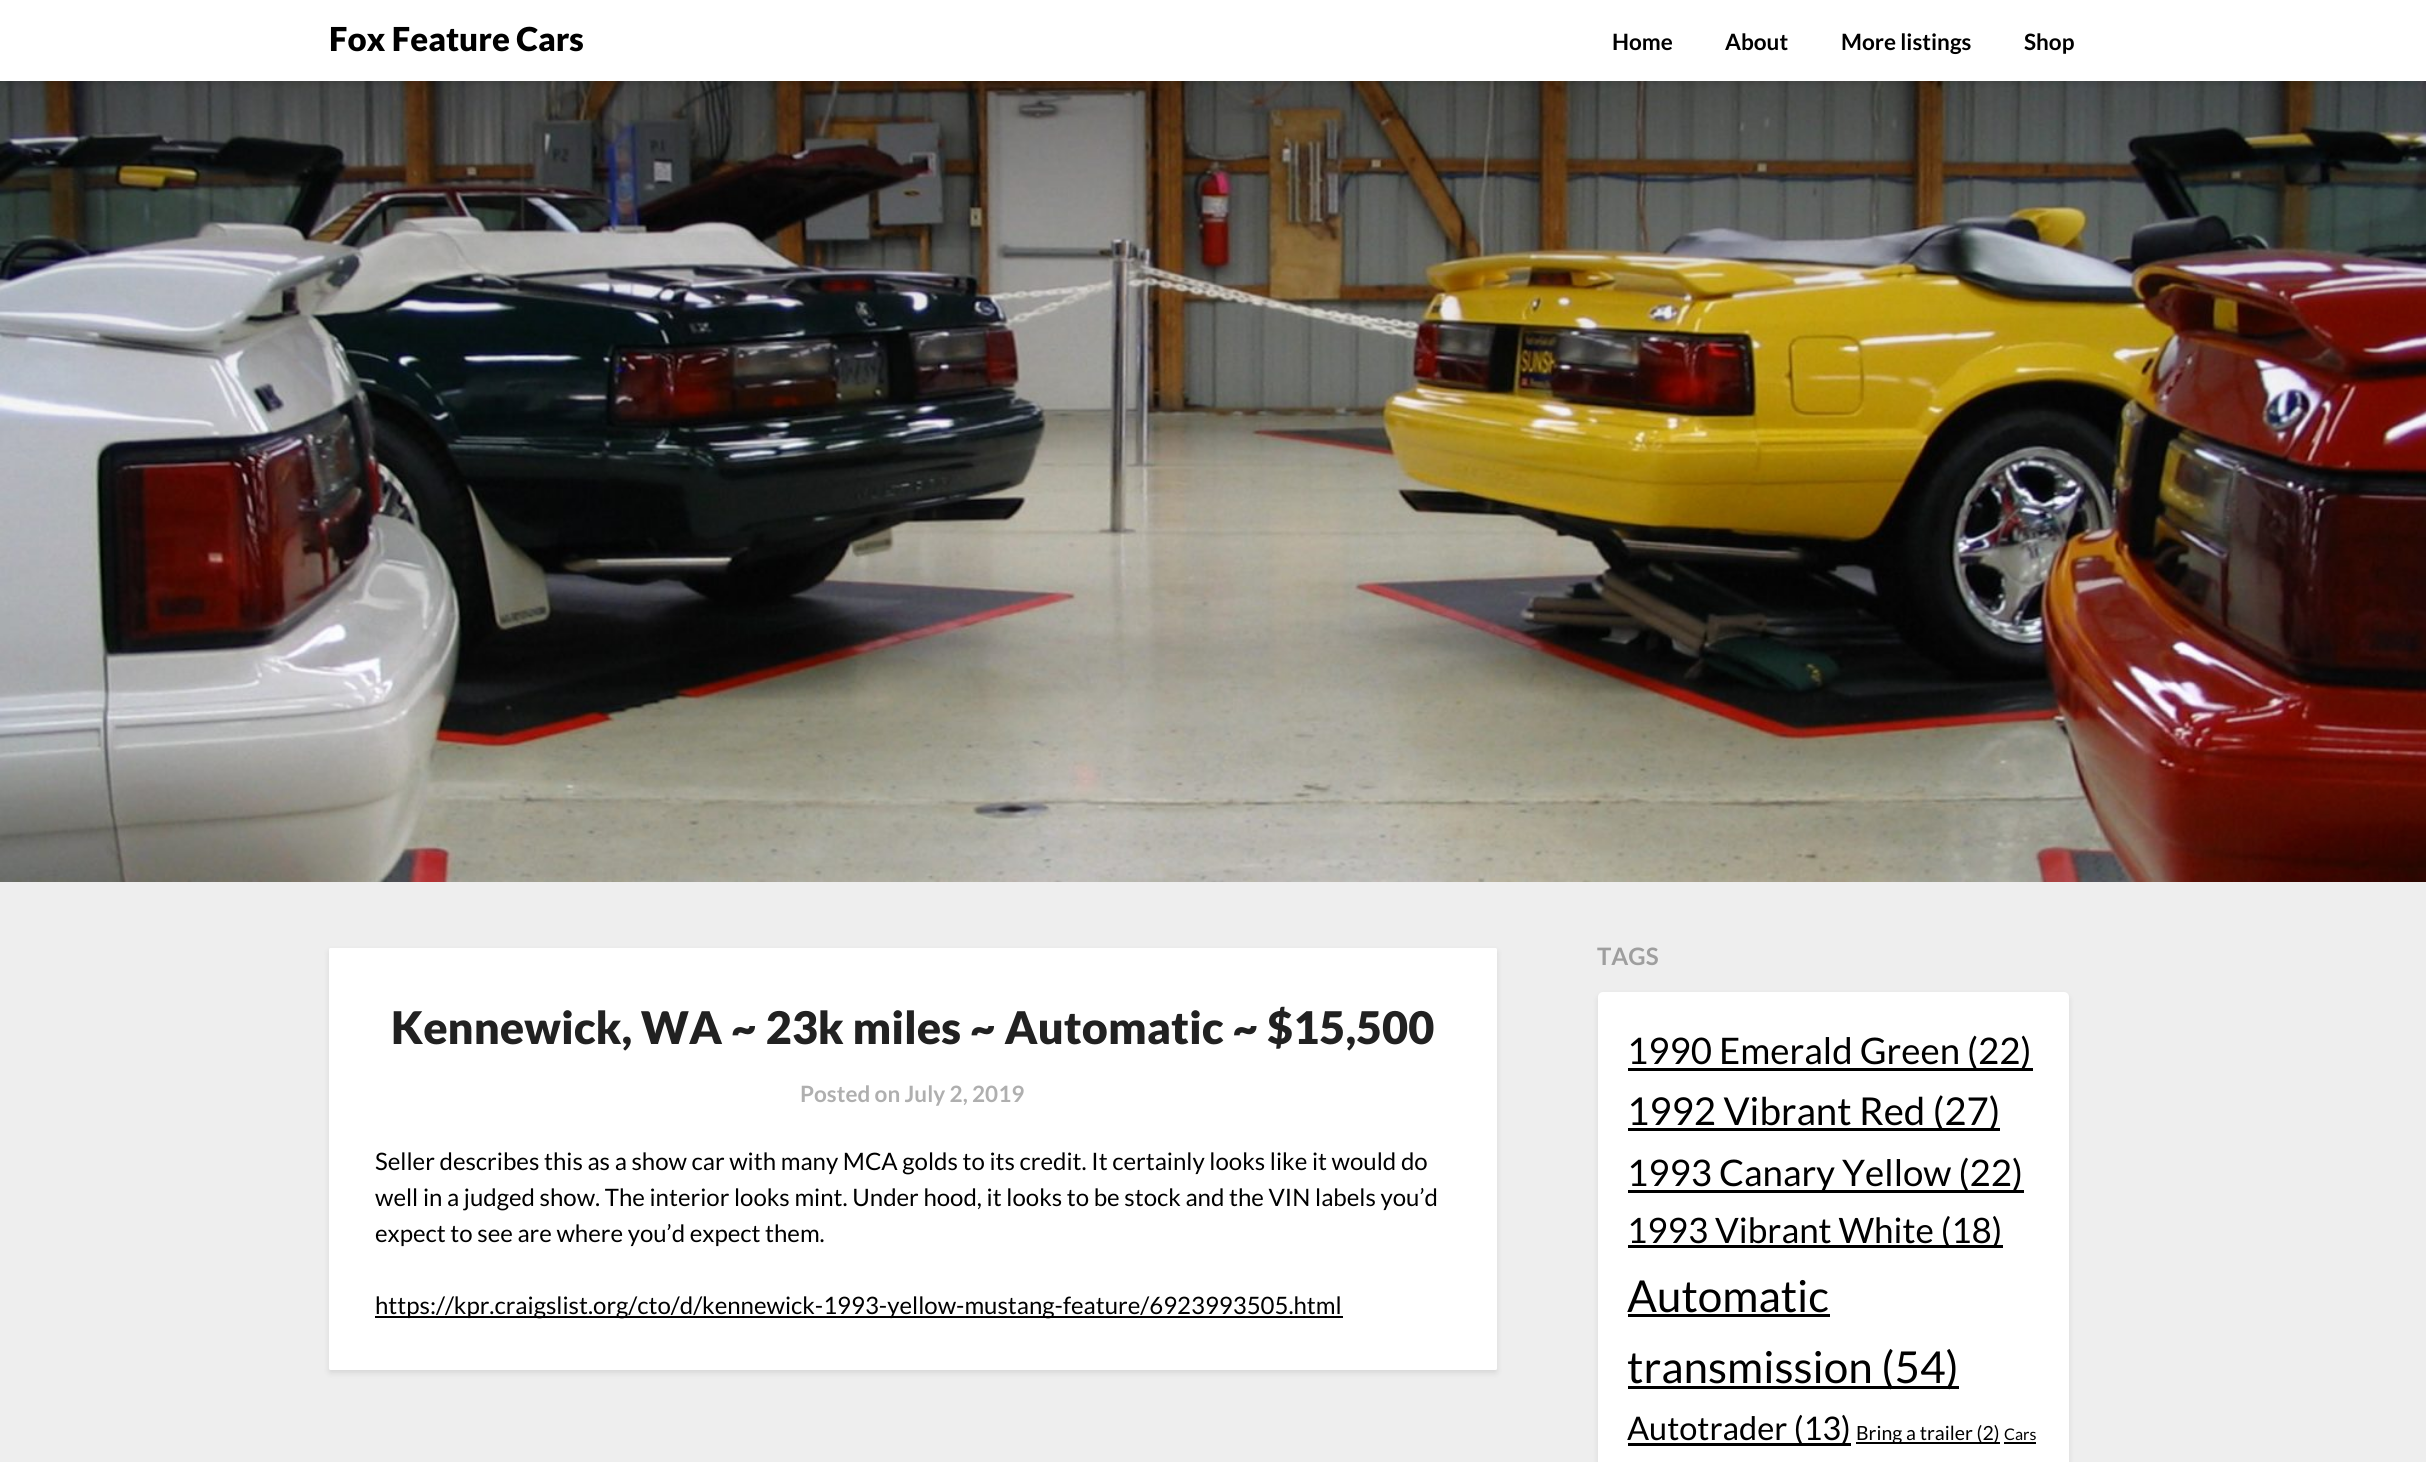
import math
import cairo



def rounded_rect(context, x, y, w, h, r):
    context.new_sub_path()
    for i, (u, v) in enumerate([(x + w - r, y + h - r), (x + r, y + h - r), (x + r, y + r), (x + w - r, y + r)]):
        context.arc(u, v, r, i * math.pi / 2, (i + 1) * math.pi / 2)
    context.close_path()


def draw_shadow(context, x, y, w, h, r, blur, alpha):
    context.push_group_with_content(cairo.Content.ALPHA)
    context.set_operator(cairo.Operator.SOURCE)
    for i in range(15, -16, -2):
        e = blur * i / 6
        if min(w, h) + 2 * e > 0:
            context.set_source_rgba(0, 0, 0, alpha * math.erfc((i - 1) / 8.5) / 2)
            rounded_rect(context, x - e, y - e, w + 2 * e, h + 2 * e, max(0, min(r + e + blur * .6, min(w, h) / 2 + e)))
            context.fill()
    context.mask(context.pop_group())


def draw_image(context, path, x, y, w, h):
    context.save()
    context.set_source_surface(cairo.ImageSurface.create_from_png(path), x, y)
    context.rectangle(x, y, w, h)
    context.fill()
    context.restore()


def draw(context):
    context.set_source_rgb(238 / 255, 238 / 255, 238 / 255)
    context.paint()
    draw_image(context, "images/1.png", 0, 81, 2426, 801)
    context.set_source_rgb(0, 0, 0)
    draw_shadow(context, 0, 3, 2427, 81, 0, 3, 0.1)
    context.set_source_rgb(1, 1, 1)
    context.rectangle(0, 0, 2426, 81)
    context.fill()
    context.set_source_rgb(0, 0, 0)
    draw_shadow(context, 329, 951, 1168, 422, 1.5, 3, 0.1)
    context.set_source_rgb(1, 1, 1)
    rounded_rect(context, 329, 948, 1168, 422, 1.5)
    context.fill()
    context.set_source_rgb(0, 0, 0)
    context.rectangle(375, 1316, 968, 2)
    context.fill()
    context.set_source_rgb(0, 0, 0)
    draw_shadow(context, 1598, 995, 471, 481, 5, 3, 0.1)
    context.set_source_rgb(1, 1, 1)
    rounded_rect(context, 1598, 992, 471, 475, 5)
    context.fill()
    context.set_source_rgb(0, 0, 0)
    context.rectangle(1628, 1068, 405, 3)
    context.fill()
    context.rectangle(1628, 1128, 372, 3)
    context.fill()
    context.rectangle(1628, 1190, 396, 3)
    context.fill()
    context.rectangle(1628, 1245, 375, 3)
    context.fill()
    context.rectangle(1628, 1314, 202, 3)
    context.fill()
    context.rectangle(1628, 1386, 331, 3)
    context.fill()
    context.rectangle(1628, 1443, 223, 3)
    context.fill()
    context.rectangle(1856, 1442, 144, 2)
    context.fill()
    context.rectangle(2004, 1442, 32, 2)
    context.fill()
    context.select_font_face("Lato Black")
    context.set_font_size(33)
    context.move_to(329, 51)
    context.show_text("Fox Feature Cars")
    context.select_font_face("Lato", cairo.FontSlant.NORMAL, cairo.FontWeight.BOLD)
    context.set_font_size(22.5)
    context.move_to(1612, 50)
    context.show_text("Home")
    context.move_to(1725, 50)
    context.show_text("About")
    context.move_to(1841, 50)
    context.show_text("More listings")
    context.move_to(2024, 50)
    context.show_text("Shop")
    context.select_font_face("Lato Black")
    context.set_font_size(45)
    context.set_source_rgb(33 / 255, 33 / 255, 33 / 255)
    context.move_to(391, 1044)
    context.show_text("Kennewick, WA ~ 23k miles ~ Automatic ~ $15,500")
    context.select_font_face("Lato", cairo.FontSlant.NORMAL, cairo.FontWeight.BOLD)
    context.set_font_size(22.5)
    context.set_source_rgb(175 / 255, 175 / 255, 175 / 255)
    context.move_to(800, 1102)
    context.show_text("Posted on July 2, 2019")
    context.select_font_face("Lato")
    context.set_font_size(24)
    context.set_source_rgb(0, 0, 0)
    context.move_to(375, 1170)
    context.show_text("Seller describes this as a show car with many MCA golds to its credit. It certainly looks like it would do")
    context.move_to(375, 1206)
    context.show_text("well in a judged show. The interior looks mint. Under hood, it looks to be stock and the VIN labels you’d")
    context.move_to(375, 1242)
    context.show_text("expect to see are where you’d expect them.")
    context.move_to(375, 1314)
    context.show_text("https://kpr.craigslist.org/cto/d/kennewick-1993-yellow-mustang-feature/6923993505.html")
    context.select_font_face("Lato", cairo.FontSlant.NORMAL, cairo.FontWeight.BOLD)
    context.set_source_rgb(158 / 255, 158 / 255, 158 / 255)
    context.move_to(1597, 965)
    context.show_text("TAGS")
    context.select_font_face("Lato")
    context.set_font_size(36.6)
    context.set_source_rgb(0, 0, 0)
    context.move_to(1627, 1064)
    context.show_text("1990 Emerald Green (22)")
    context.set_font_size(38.4)
    context.move_to(1627, 1125)
    context.show_text("1992 Vibrant Red (27)")
    context.set_font_size(36.6)
    context.move_to(1627, 1186)
    context.show_text("1993 Canary Yellow (22)")
    context.set_font_size(35)
    context.move_to(1627, 1243)
    context.show_text("1993 Vibrant White (18)")
    context.set_font_size(44)
    context.move_to(1627, 1312)
    context.show_text("Automatic")
    context.move_to(1627, 1383)
    context.show_text("transmission (54)")
    context.set_font_size(32.5)
    context.move_to(1627, 1440)
    context.show_text("Autotrader (13)")
    context.set_font_size(19.5)
    context.move_to(1856, 1440)
    context.show_text("Bring a trailer (2)")
    context.set_font_size(16)
    context.move_to(2004, 1440)
    context.show_text("Cars")


surface = cairo.ImageSurface(cairo.Format.RGB24, 2426, 1462)
context = cairo.Context(surface)
options = cairo.FontOptions()
options.set_hint_metrics(cairo.HintMetrics.OFF)
options.set_hint_style(cairo.HintStyle.NONE)
context.set_font_options(options)
context.set_miter_limit(4)
draw(context)
surface.write_to_png("out.png")
